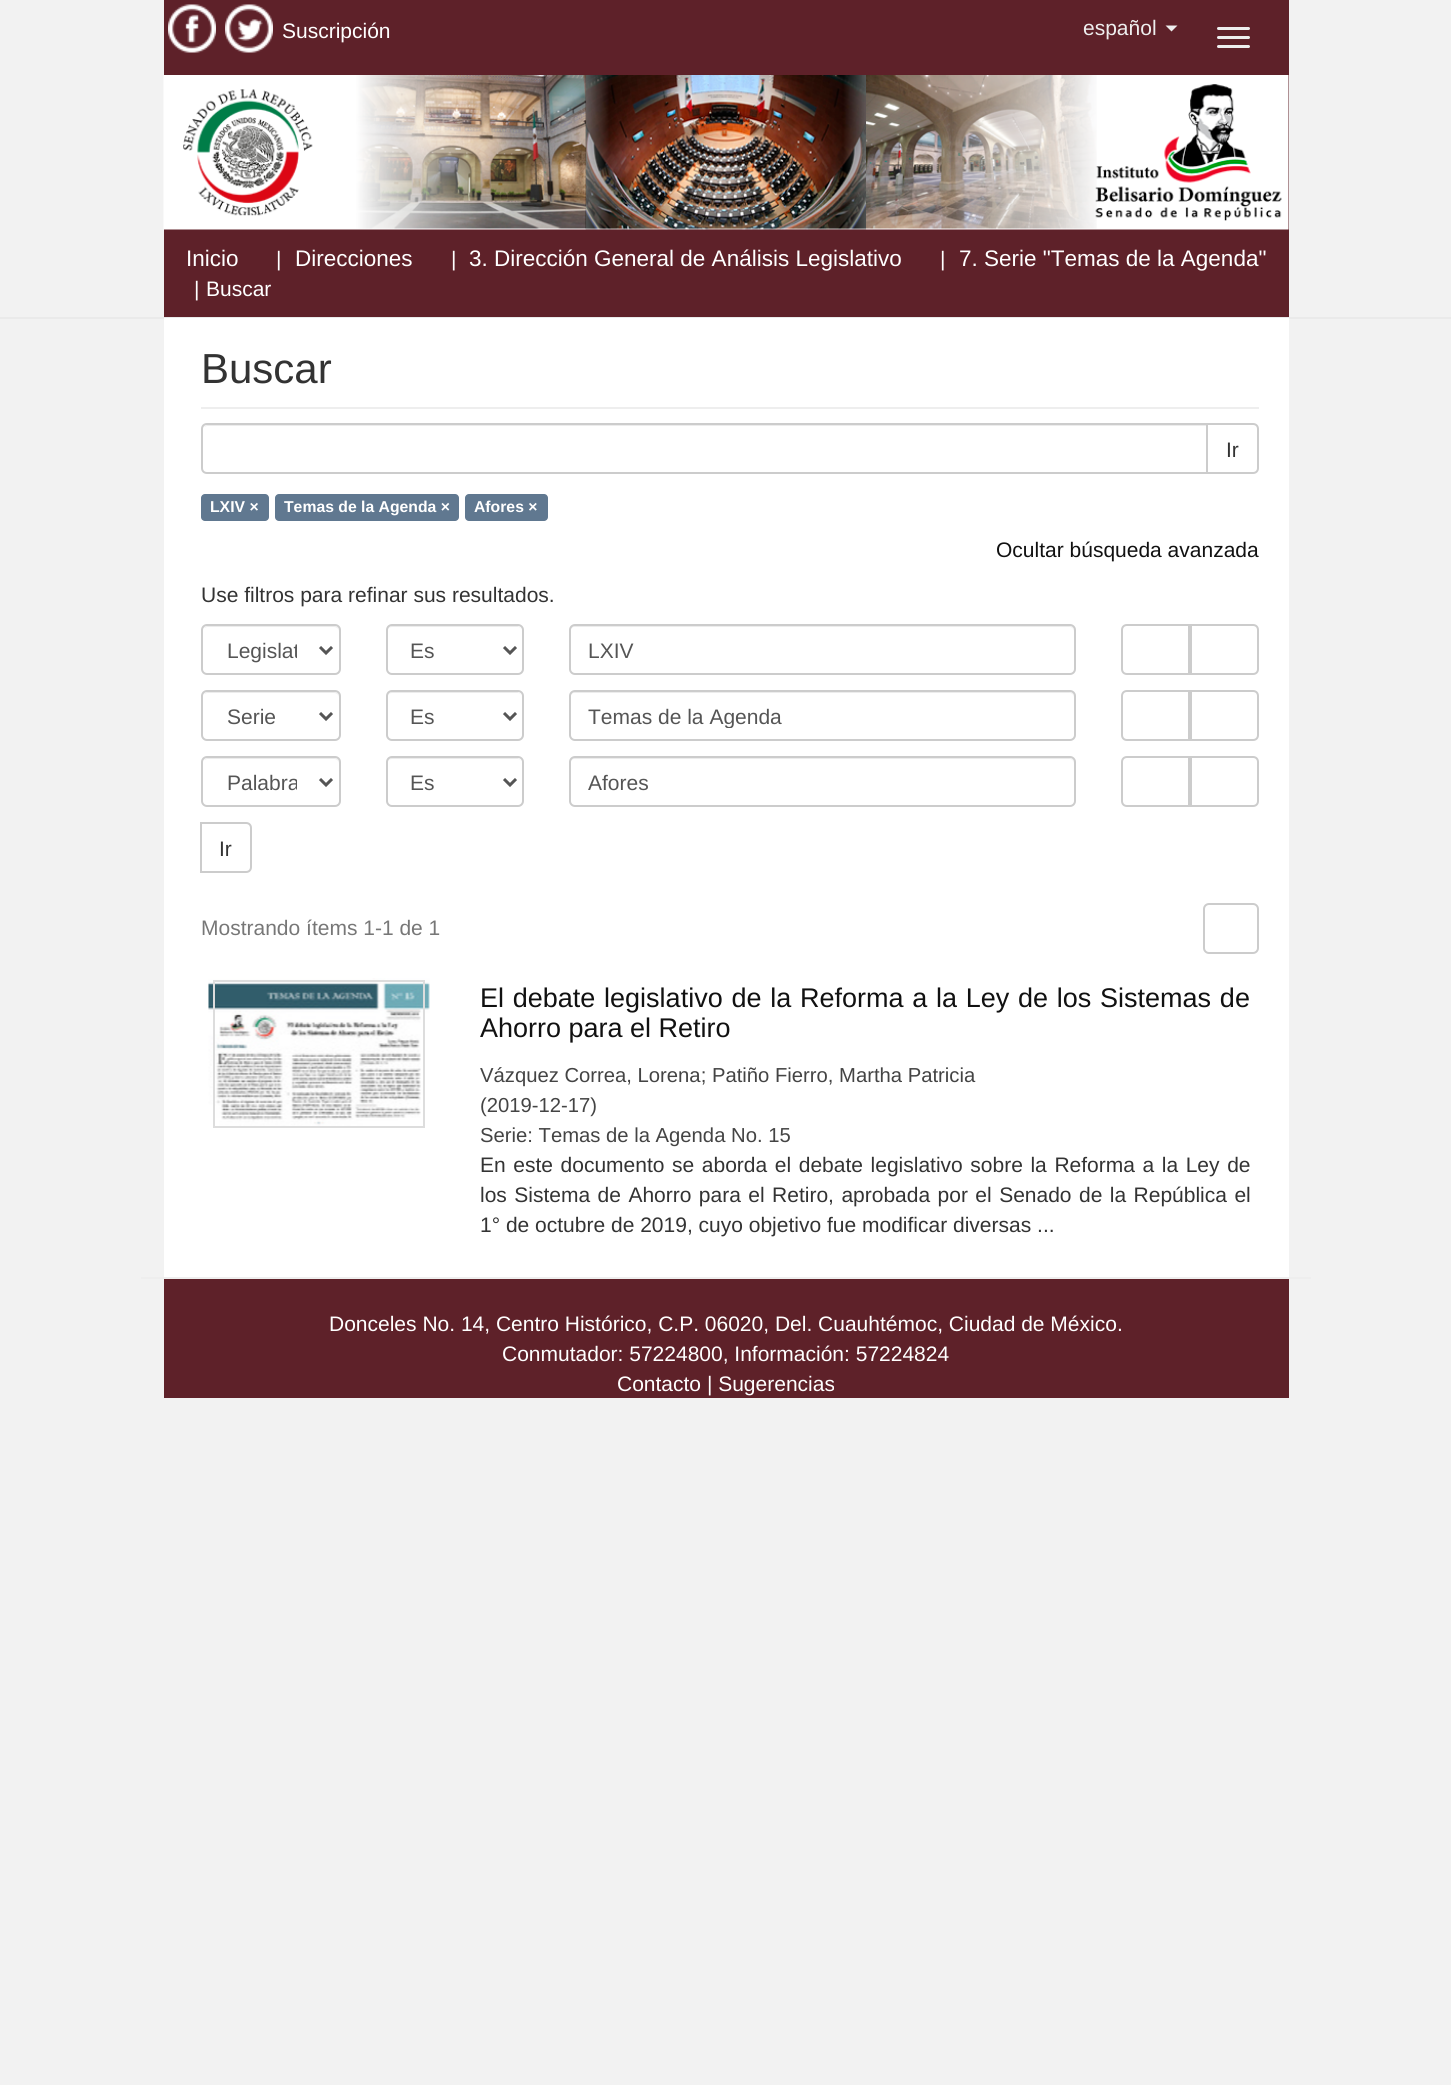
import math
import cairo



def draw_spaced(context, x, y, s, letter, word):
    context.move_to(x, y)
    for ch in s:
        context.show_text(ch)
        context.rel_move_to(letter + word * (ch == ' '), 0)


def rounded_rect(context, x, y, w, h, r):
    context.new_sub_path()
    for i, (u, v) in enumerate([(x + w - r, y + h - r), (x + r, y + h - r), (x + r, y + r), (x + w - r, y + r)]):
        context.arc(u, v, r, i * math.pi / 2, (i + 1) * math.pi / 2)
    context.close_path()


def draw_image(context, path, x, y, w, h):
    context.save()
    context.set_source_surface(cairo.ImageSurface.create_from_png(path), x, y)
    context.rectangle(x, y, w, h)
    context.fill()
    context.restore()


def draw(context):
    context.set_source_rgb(242 / 255, 242 / 255, 242 / 255)
    context.paint()
    context.set_source_rgb(94 / 255, 33 / 255, 41 / 255)
    context.rectangle(164, 0, 1125, 317)
    context.fill()
    draw_image(context, "images/1.png", 163, 75, 1126, 155)
    draw_image(context, "images/2.png", 168, 4, 48, 49)
    draw_image(context, "images/3.png", 225, 4, 48, 49)
    context.set_source_rgb(238 / 255, 238 / 255, 238 / 255)
    context.new_path()
    context.move_to(1165.5, 25.5)
    context.line_to(1177.5, 25.5)
    context.line_to(1171.5, 31.5)
    context.close_path()
    context.fill()
    rounded_rect(context, 1217, 27, 33, 3, 1.5)
    context.fill()
    rounded_rect(context, 1217, 36, 33, 3, 1.5)
    context.fill()
    rounded_rect(context, 1217, 45, 33, 3, 1.5)
    context.fill()
    context.set_source_rgb(234 / 255, 234 / 255, 234 / 255)
    context.rectangle(0, 317, 1451, 2)
    context.fill()
    context.set_source_rgb(1, 1, 1)
    context.rectangle(164, 318, 1125, 959)
    context.fill()
    context.set_source_rgb(238 / 255, 238 / 255, 238 / 255)
    context.rectangle(201, 407, 1058, 2)
    context.fill()
    context.new_path()
    context.move_to(1207, 424)
    context.line_to(1253, 424)
    context.curve_to(1256, 424, 1258, 426, 1258, 429)
    context.line_to(1258, 468)
    context.curve_to(1258, 471, 1256, 473, 1253, 473)
    context.line_to(1207, 473)
    context.close_path()
    context.set_source_rgb(204 / 255, 204 / 255, 204 / 255)
    context.stroke()
    context.set_source_rgb(1, 1, 1)
    context.new_path()
    context.move_to(207, 423)
    context.line_to(1208, 423)
    context.line_to(1208, 474)
    context.line_to(207, 474)
    context.curve_to(203.5, 474, 201, 471.5, 201, 468)
    context.line_to(201, 429)
    context.curve_to(201, 425.5, 203.5, 423, 207, 423)
    context.close_path()
    context.fill()
    context.set_source_rgb(236 / 255, 236 / 255, 236 / 255)
    context.new_path()
    context.move_to(207, 426)
    context.line_to(1206, 426)
    context.line_to(1206, 425)
    context.line_to(208, 425)
    context.curve_to(206, 425, 205, 426, 204, 427)
    context.close_path()
    context.fill()
    context.new_path()
    context.move_to(207, 424)
    context.line_to(1207, 424)
    context.line_to(1207, 473)
    context.line_to(207, 473)
    context.curve_to(204, 473, 202, 471, 202, 468)
    context.line_to(202, 429)
    context.curve_to(202, 426, 204, 424, 207, 424)
    context.close_path()
    context.set_source_rgb(204 / 255, 204 / 255, 204 / 255)
    context.stroke()
    context.set_source_rgb(96 / 255, 120 / 255, 144 / 255)
    rounded_rect(context, 201, 494, 68, 27, 4)
    context.fill()
    rounded_rect(context, 275, 494, 184, 27, 4)
    context.fill()
    rounded_rect(context, 465, 494, 83, 27, 4)
    context.fill()
    context.set_source_rgb(236 / 255, 236 / 255, 236 / 255)
    context.new_path()
    context.move_to(207, 627)
    context.line_to(334, 627)
    context.curve_to(337, 627, 339, 629, 339, 632)
    context.line_to(339, 631)
    context.curve_to(339, 628, 337, 626, 334, 626)
    context.line_to(208, 626)
    context.curve_to(206, 626, 205, 627, 204, 628)
    context.close_path()
    context.fill()
    rounded_rect(context, 202, 625, 138, 49, 5)
    context.set_source_rgb(204 / 255, 204 / 255, 204 / 255)
    context.stroke()
    context.new_path()
    context.move_to(320, 647)
    context.line_to(326, 653)
    context.line_to(332, 647)
    context.set_source_rgb(85 / 255, 85 / 255, 85 / 255)
    context.set_line_width(3)
    context.stroke()
    context.set_source_rgb(236 / 255, 236 / 255, 236 / 255)
    context.new_path()
    context.move_to(392, 627)
    context.line_to(518, 627)
    context.curve_to(520, 627, 522, 629, 522, 632)
    context.curve_to(522, 621, 500, 626, 496, 626)
    context.line_to(413, 626)
    context.curve_to(409, 626, 387, 621, 387, 632)
    context.curve_to(387, 629, 389, 627, 392, 627)
    context.close_path()
    context.fill()
    rounded_rect(context, 387, 625, 136, 49, 5)
    context.set_source_rgb(204 / 255, 204 / 255, 204 / 255)
    context.set_line_width(2)
    context.stroke()
    context.new_path()
    context.move_to(504, 647)
    context.line_to(510, 653)
    context.line_to(516, 647)
    context.set_source_rgb(85 / 255, 85 / 255, 85 / 255)
    context.set_line_width(3)
    context.stroke()
    context.set_source_rgb(236 / 255, 236 / 255, 236 / 255)
    context.new_path()
    context.move_to(574, 627)
    context.line_to(1070, 627)
    context.curve_to(1072, 627, 1074, 629, 1074, 632)
    context.line_to(1074, 631)
    context.curve_to(1074, 628, 1072, 626, 1069, 626)
    context.line_to(575, 626)
    context.curve_to(572, 626, 570, 628, 570, 631)
    context.line_to(570, 632)
    context.curve_to(570, 629, 572, 627, 574, 627)
    context.close_path()
    context.fill()
    rounded_rect(context, 570, 625, 505, 49, 5)
    context.set_source_rgb(204 / 255, 204 / 255, 204 / 255)
    context.set_line_width(2)
    context.stroke()
    context.new_path()
    context.move_to(1127, 625)
    context.line_to(1189, 625)
    context.line_to(1189, 674)
    context.line_to(1127, 674)
    context.curve_to(1124, 674, 1122, 672, 1122, 669)
    context.line_to(1122, 630)
    context.curve_to(1122, 627, 1124, 625, 1127, 625)
    context.close_path()
    context.stroke()
    context.new_path()
    context.move_to(1191, 625)
    context.line_to(1253, 625)
    context.curve_to(1256, 625, 1258, 627, 1258, 630)
    context.line_to(1258, 669)
    context.curve_to(1258, 672, 1256, 674, 1253, 674)
    context.line_to(1191, 674)
    context.close_path()
    context.stroke()
    context.set_source_rgb(236 / 255, 236 / 255, 236 / 255)
    context.new_path()
    context.move_to(207, 693)
    context.line_to(334, 693)
    context.curve_to(337, 693, 339, 695, 339, 698)
    context.line_to(339, 697)
    context.curve_to(339, 694, 337, 692, 334, 692)
    context.line_to(208, 692)
    context.curve_to(206, 692, 205, 693, 204, 694)
    context.close_path()
    context.fill()
    rounded_rect(context, 202, 691, 138, 49, 5)
    context.set_source_rgb(204 / 255, 204 / 255, 204 / 255)
    context.stroke()
    context.new_path()
    context.move_to(320, 713)
    context.line_to(326, 719)
    context.line_to(332, 713)
    context.set_source_rgb(85 / 255, 85 / 255, 85 / 255)
    context.set_line_width(3)
    context.stroke()
    context.set_source_rgb(236 / 255, 236 / 255, 236 / 255)
    context.new_path()
    context.move_to(392, 693)
    context.line_to(518, 693)
    context.curve_to(520, 693, 522, 695, 522, 698)
    context.curve_to(522, 687, 500, 692, 496, 692)
    context.line_to(413, 692)
    context.curve_to(409, 692, 387, 687, 387, 698)
    context.curve_to(387, 695, 389, 693, 392, 693)
    context.close_path()
    context.fill()
    rounded_rect(context, 387, 691, 136, 49, 5)
    context.set_source_rgb(204 / 255, 204 / 255, 204 / 255)
    context.set_line_width(2)
    context.stroke()
    context.new_path()
    context.move_to(504, 713)
    context.line_to(510, 719)
    context.line_to(516, 713)
    context.set_source_rgb(85 / 255, 85 / 255, 85 / 255)
    context.set_line_width(3)
    context.stroke()
    context.set_source_rgb(236 / 255, 236 / 255, 236 / 255)
    context.new_path()
    context.move_to(574, 693)
    context.line_to(1070, 693)
    context.curve_to(1072, 693, 1074, 695, 1074, 698)
    context.line_to(1074, 697)
    context.curve_to(1074, 694, 1072, 692, 1069, 692)
    context.line_to(575, 692)
    context.curve_to(572, 692, 570, 694, 570, 697)
    context.line_to(570, 698)
    context.curve_to(570, 695, 572, 693, 574, 693)
    context.close_path()
    context.fill()
    rounded_rect(context, 570, 691, 505, 49, 5)
    context.set_source_rgb(204 / 255, 204 / 255, 204 / 255)
    context.set_line_width(2)
    context.stroke()
    context.new_path()
    context.move_to(1127, 691)
    context.line_to(1189, 691)
    context.line_to(1189, 740)
    context.line_to(1127, 740)
    context.curve_to(1124, 740, 1122, 738, 1122, 735)
    context.line_to(1122, 696)
    context.curve_to(1122, 693, 1124, 691, 1127, 691)
    context.close_path()
    context.stroke()
    context.new_path()
    context.move_to(1191, 691)
    context.line_to(1253, 691)
    context.curve_to(1256, 691, 1258, 693, 1258, 696)
    context.line_to(1258, 735)
    context.curve_to(1258, 738, 1256, 740, 1253, 740)
    context.line_to(1191, 740)
    context.close_path()
    context.stroke()
    context.set_source_rgb(236 / 255, 236 / 255, 236 / 255)
    context.new_path()
    context.move_to(207, 759)
    context.line_to(334, 759)
    context.curve_to(337, 759, 339, 761, 339, 764)
    context.line_to(339, 763)
    context.curve_to(339, 760, 337, 758, 334, 758)
    context.line_to(208, 758)
    context.curve_to(206, 758, 205, 759, 204, 760)
    context.close_path()
    context.fill()
    rounded_rect(context, 202, 757, 138, 49, 5)
    context.set_source_rgb(204 / 255, 204 / 255, 204 / 255)
    context.stroke()
    context.new_path()
    context.move_to(320, 779)
    context.line_to(326, 785)
    context.line_to(332, 779)
    context.set_source_rgb(85 / 255, 85 / 255, 85 / 255)
    context.set_line_width(3)
    context.stroke()
    context.set_source_rgb(236 / 255, 236 / 255, 236 / 255)
    context.new_path()
    context.move_to(392, 759)
    context.line_to(518, 759)
    context.curve_to(520, 759, 522, 761, 522, 764)
    context.curve_to(522, 753, 500, 758, 496, 758)
    context.line_to(413, 758)
    context.curve_to(409, 758, 387, 753, 387, 764)
    context.curve_to(387, 761, 389, 759, 392, 759)
    context.close_path()
    context.fill()
    rounded_rect(context, 387, 757, 136, 49, 5)
    context.set_source_rgb(204 / 255, 204 / 255, 204 / 255)
    context.set_line_width(2)
    context.stroke()
    context.new_path()
    context.move_to(504, 779)
    context.line_to(510, 785)
    context.line_to(516, 779)
    context.set_source_rgb(85 / 255, 85 / 255, 85 / 255)
    context.set_line_width(3)
    context.stroke()
    context.set_source_rgb(236 / 255, 236 / 255, 236 / 255)
    context.new_path()
    context.move_to(574, 759)
    context.line_to(1070, 759)
    context.curve_to(1072, 759, 1074, 761, 1074, 764)
    context.line_to(1074, 763)
    context.curve_to(1074, 760, 1072, 758, 1069, 758)
    context.line_to(575, 758)
    context.curve_to(572, 758, 570, 760, 570, 763)
    context.line_to(570, 764)
    context.curve_to(570, 761, 572, 759, 574, 759)
    context.close_path()
    context.fill()
    rounded_rect(context, 570, 757, 505, 49, 5)
    context.set_source_rgb(204 / 255, 204 / 255, 204 / 255)
    context.set_line_width(2)
    context.stroke()
    context.new_path()
    context.move_to(1127, 757)
    context.line_to(1189, 757)
    context.line_to(1189, 806)
    context.line_to(1127, 806)
    context.curve_to(1124, 806, 1122, 804, 1122, 801)
    context.line_to(1122, 762)
    context.curve_to(1122, 759, 1124, 757, 1127, 757)
    context.close_path()
    context.stroke()
    context.new_path()
    context.move_to(1191, 757)
    context.line_to(1253, 757)
    context.curve_to(1256, 757, 1258, 759, 1258, 762)
    context.line_to(1258, 801)
    context.curve_to(1258, 804, 1256, 806, 1253, 806)
    context.line_to(1191, 806)
    context.close_path()
    context.stroke()
    context.new_path()
    context.move_to(201, 823)
    context.line_to(246, 823)
    context.curve_to(249, 823, 251, 825, 251, 828)
    context.line_to(251, 867)
    context.curve_to(251, 870, 249, 872, 246, 872)
    context.line_to(201, 872)
    context.close_path()
    context.stroke()
    rounded_rect(context, 1204, 904, 54, 49, 5)
    context.stroke()
    draw_image(context, "images/4.png", 208, 978, 222, 148)
    context.rectangle(214, 981, 210, 146)
    context.set_source_rgb(221 / 255, 221 / 255, 221 / 255)
    context.stroke()
    context.set_source_rgb(94 / 255, 33 / 255, 41 / 255)
    context.rectangle(164, 1279, 1125, 119)
    context.fill()
    context.set_source_rgb(238 / 255, 238 / 255, 238 / 255)
    context.rectangle(141, 1277, 1170, 2)
    context.fill()
    context.select_font_face("Liberation Sans")
    context.set_font_size(21)
    context.set_source_rgb(1, 1, 1)
    context.move_to(282, 38)
    context.show_text("Suscripción")
    context.set_source_rgb(238 / 255, 238 / 255, 238 / 255)
    context.move_to(1083, 35)
    context.show_text("español")
    context.set_font_size(22.5)
    context.set_source_rgb(1, 1, 1)
    context.move_to(186, 266)
    context.show_text("Inicio")
    context.set_font_size(21)
    context.move_to(276, 266)
    context.show_text("|")
    context.set_font_size(22.5)
    context.move_to(295, 266)
    context.show_text("Direcciones")
    context.set_font_size(21)
    context.move_to(451, 266)
    context.show_text("|")
    context.set_font_size(22.5)
    context.move_to(469, 266)
    context.show_text("3. Dirección General de Análisis Legislativo")
    context.set_font_size(21)
    context.move_to(940, 266)
    context.show_text("|")
    context.set_font_size(22.5)
    context.move_to(959, 266)
    context.show_text("7. Serie \"Temas de la Agenda\"")
    context.set_font_size(21)
    context.move_to(194, 296)
    context.show_text("|")
    context.move_to(206, 296)
    context.show_text("Buscar")
    context.set_font_size(42)
    context.set_source_rgb(51 / 255, 51 / 255, 51 / 255)
    context.move_to(201, 383)
    context.show_text("Buscar")
    context.set_font_size(21)
    context.move_to(1226, 457)
    context.show_text("Ir")
    context.select_font_face("Liberation Sans", cairo.FontSlant.NORMAL, cairo.FontWeight.BOLD)
    context.set_font_size(15.75)
    context.set_source_rgb(1, 1, 1)
    context.move_to(210, 512)
    context.show_text("LXIV ×")
    context.move_to(284, 512)
    context.show_text("Temas de la Agenda ×")
    context.move_to(474, 512)
    context.show_text("Afores ×")
    context.select_font_face("Liberation Sans")
    context.set_font_size(21)
    context.set_source_rgb(17 / 255, 17 / 255, 17 / 255)
    context.move_to(996, 557)
    context.show_text("Ocultar búsqueda avanzada")
    context.set_source_rgb(51 / 255, 51 / 255, 51 / 255)
    context.move_to(201, 602)
    context.show_text("Use filtros para refinar sus resultados.")
    context.save()
    context.rectangle(227, 636, 70, 27)
    context.clip()
    context.set_source_rgb(85 / 255, 85 / 255, 85 / 255)
    context.move_to(227, 658)
    context.show_text("Legislat")
    context.restore()
    context.set_source_rgb(85 / 255, 85 / 255, 85 / 255)
    context.move_to(410, 658)
    context.show_text("Es")
    context.move_to(588, 658)
    context.show_text("LXIV")
    context.move_to(227, 724)
    context.show_text("Serie")
    context.move_to(410, 724)
    context.show_text("Es")
    context.save()
    context.rectangle(588, 704, 468, 24)
    context.clip()
    context.move_to(588, 724)
    context.show_text("Temas de la Agenda")
    context.restore()
    context.save()
    context.rectangle(227, 768, 70, 27)
    context.clip()
    context.move_to(227, 790)
    context.show_text("Palabra")
    context.restore()
    context.move_to(410, 790)
    context.show_text("Es")
    context.move_to(588, 790)
    context.show_text("Afores")
    context.set_source_rgb(51 / 255, 51 / 255, 51 / 255)
    context.move_to(219, 856)
    context.show_text("Ir")
    context.set_source_rgb(119 / 255, 119 / 255, 119 / 255)
    context.move_to(201, 935)
    context.show_text("Mostrando ítems 1-1 de 1")
    context.set_font_size(27)
    context.set_source_rgb(17 / 255, 17 / 255, 17 / 255)
    draw_spaced(context, 480, 1007, "El debate legislativo de la Reforma a la Ley de los Sistemas de", 0, 1.25)
    context.move_to(480, 1037)
    context.show_text("Ahorro para el Retiro")
    context.set_font_size(20.25)
    context.set_source_rgb(68 / 255, 68 / 255, 68 / 255)
    context.move_to(480, 1082)
    context.show_text("Vázquez Correa, Lorena; Patiño Fierro, Martha Patricia")
    context.move_to(480, 1112)
    context.show_text("(2019-12-17)")
    context.move_to(480, 1142)
    context.show_text("Serie: Temas de la Agenda No. 15")
    context.set_font_size(21)
    context.set_source_rgb(51 / 255, 51 / 255, 51 / 255)
    draw_spaced(context, 480, 1172, "En este documento se aborda el debate legislativo sobre la Reforma a la Ley de", 0, 1.75)
    draw_spaced(context, 480, 1202, "los Sistema de Ahorro para el Retiro, aprobada por el Senado de la República el", 0, 1.6)
    context.move_to(480, 1232)
    context.show_text("1° de octubre de 2019, cuyo objetivo fue modificar diversas ...")
    context.set_source_rgb(1, 1, 1)
    context.move_to(329, 1331)
    context.show_text("Donceles No. 14, Centro Histórico, C.P. 06020, Del. Cuauhtémoc, Ciudad de México.")
    context.move_to(502, 1361)
    context.show_text("Conmutador: 57224800, Información: 57224824")
    context.move_to(617, 1391)
    context.show_text("Contacto | Sugerencias")


surface = cairo.ImageSurface(cairo.Format.RGB24, 1451, 2085)
context = cairo.Context(surface)
options = cairo.FontOptions()
options.set_hint_metrics(cairo.HintMetrics.OFF)
options.set_hint_style(cairo.HintStyle.NONE)
context.set_font_options(options)
context.set_miter_limit(4)
draw(context)
surface.write_to_png("out.png")
